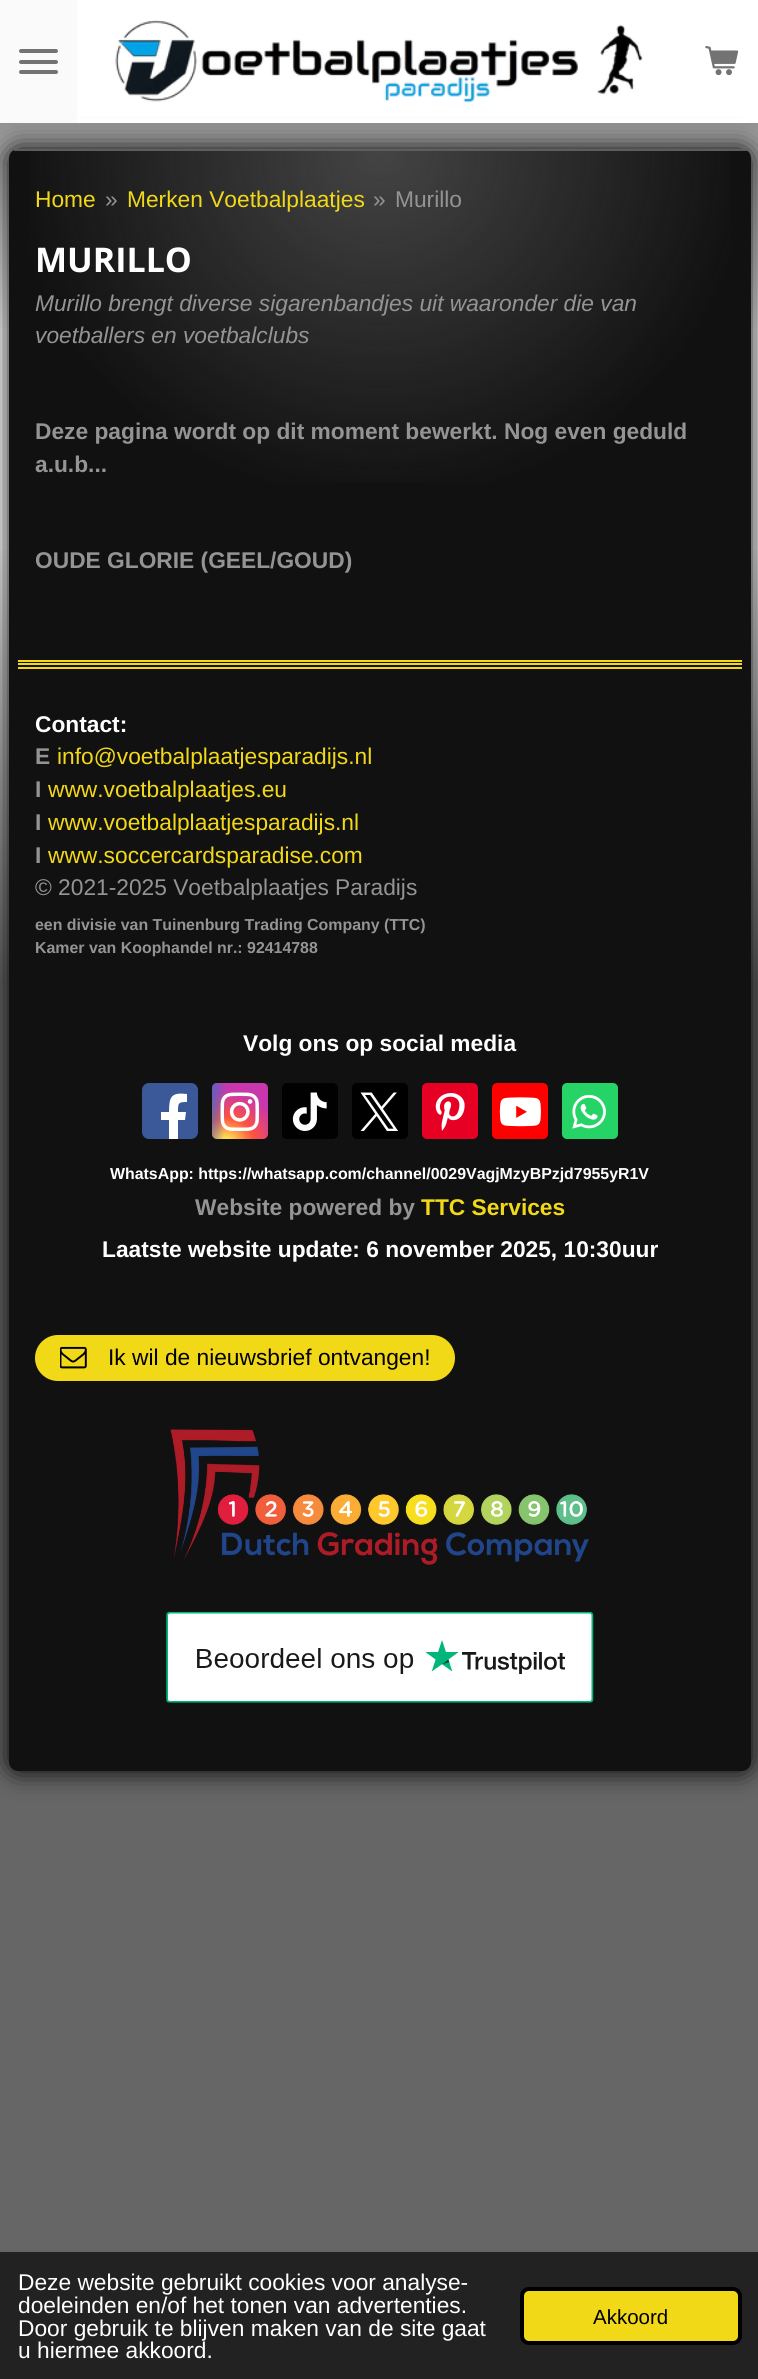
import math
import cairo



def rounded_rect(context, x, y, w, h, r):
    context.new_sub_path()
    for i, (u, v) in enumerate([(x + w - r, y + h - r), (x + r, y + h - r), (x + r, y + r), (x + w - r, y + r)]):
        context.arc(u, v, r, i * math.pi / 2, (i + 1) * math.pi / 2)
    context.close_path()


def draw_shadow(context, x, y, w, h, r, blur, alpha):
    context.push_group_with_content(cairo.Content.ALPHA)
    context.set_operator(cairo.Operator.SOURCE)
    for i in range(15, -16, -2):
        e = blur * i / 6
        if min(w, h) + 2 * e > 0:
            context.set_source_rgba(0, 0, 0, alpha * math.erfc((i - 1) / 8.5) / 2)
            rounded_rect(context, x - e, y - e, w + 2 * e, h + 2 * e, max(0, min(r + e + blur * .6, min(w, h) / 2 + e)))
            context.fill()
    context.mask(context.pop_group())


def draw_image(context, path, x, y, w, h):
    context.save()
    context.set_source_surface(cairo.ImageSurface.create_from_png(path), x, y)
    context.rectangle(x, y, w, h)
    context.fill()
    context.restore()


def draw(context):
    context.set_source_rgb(1, 1, 1)
    context.paint()
    gradient = cairo.LinearGradient(380, 333, 380, 35)
    gradient.add_color_stop_rgba(0, 1, 1, 1, 1)
    gradient.add_color_stop_rgba(1, 102 / 255, 102 / 255, 102 / 255, 1)
    context.set_source(gradient)
    context.rectangle(0, 123, 758, 205)
    context.fill()
    gradient = cairo.LinearGradient(380, 980, 380, 543)
    gradient.add_color_stop_rgba(0, 102 / 255, 102 / 255, 102 / 255, 1)
    gradient.add_color_stop_rgba(1, 1, 1, 1, 1)
    context.set_source(gradient)
    context.rectangle(0, 550, 758, 430)
    context.fill()
    context.set_source_rgb(102 / 255, 102 / 255, 102 / 255)
    context.rectangle(0, 980, 758, 1272)
    context.fill()
    context.set_source_rgb(0, 0, 0)
    draw_shadow(context, 9, 149, 742, 1622, 9, 13, 1)
    context.set_source_rgb(250 / 255, 250 / 255, 250 / 255)
    context.rectangle(0, 0, 77, 123)
    context.fill()
    context.set_source_rgb(115 / 255, 115 / 255, 115 / 255)
    rounded_rect(context, 19, 60, 39, 4, 2)
    context.fill()
    rounded_rect(context, 19, 49, 39, 4, 2)
    context.fill()
    rounded_rect(context, 19, 70, 39, 4, 2)
    context.fill()
    draw_image(context, "images/1.png", 115, 20, 528, 83)
    context.set_source_rgb(1, 1, 1)
    context.rectangle(77, 119, 672, 4)
    context.fill()
    draw_image(context, "images/2.png", 705, 46, 34, 30)
    context.set_source_rgb(17 / 255, 17 / 255, 17 / 255)
    rounded_rect(context, 9, 149, 742, 1622, 9)
    context.fill()
    context.set_source_rgb(94 / 255, 94 / 255, 94 / 255)
    context.rectangle(14, 149, 733, 2)
    context.fill()
    gradient = cairo.RadialGradient(0, 0, 0, 0, 0, 1)
    gradient.set_matrix(cairo.Matrix(1 / 371, 0, 0, 1 / 350, -1 * 380 / 371, -1 * 151 / 350))
    gradient.add_color_stop_rgba(0, 68 / 255, 68 / 255, 68 / 255, 1)
    gradient.add_color_stop_rgba(1, 68 / 255, 68 / 255, 68 / 255, 0)
    context.set_source(gradient)
    context.rectangle(29, 151, 702, 332)
    context.fill()
    context.set_source_rgb(242 / 255, 217 / 255, 24 / 255)
    context.rectangle(18, 660, 724, 2)
    context.fill()
    context.rectangle(18, 663, 724, 2)
    context.fill()
    context.rectangle(18, 667, 724, 2)
    context.fill()
    context.set_source_rgb(59 / 255, 89 / 255, 152 / 255)
    rounded_rect(context, 142, 1083, 56, 56, 7)
    context.fill()
    context.set_source_rgb(1, 1, 1)
    context.new_path()
    context.move_to(185, 1120)
    context.line_to(178, 1120)
    context.line_to(178, 1139)
    context.line_to(169, 1139)
    context.line_to(169, 1120)
    context.line_to(161, 1120)
    context.line_to(161, 1112)
    context.line_to(169, 1112)
    context.curve_to(169, 1097, 171, 1092, 187, 1094)
    context.line_to(187, 1102)
    context.curve_to(178, 1102, 178, 1103, 178, 1112)
    context.line_to(186, 1112)
    context.close_path()
    context.fill()
    gradient = cairo.RadialGradient(0, 0, 0, 0, 0, 1)
    gradient.set_matrix(cairo.Matrix(1 / 55, 0, 0, 1 / 51, -1 * 226 / 55, -1 * 1143 / 51))
    gradient.add_color_stop_rgba(0, 1, 221 / 255, 85 / 255, 1)
    gradient.add_color_stop_rgba(0.1, 1, 221 / 255, 85 / 255, 1)
    gradient.add_color_stop_rgba(0.5, 1, 84 / 255, 62 / 255, 1)
    gradient.add_color_stop_rgba(1, 200 / 255, 55 / 255, 171 / 255, 1)
    context.set_source(gradient)
    rounded_rect(context, 212, 1083, 56, 56, 5)
    context.fill()
    gradient = cairo.RadialGradient(0, 0, 0, 0, 0, 1)
    gradient.set_matrix(cairo.Matrix(1 / 24, 0, 0, 1 / 101, -1 * 203 / 24, -1 * 1087 / 101))
    gradient.add_color_stop_rgba(0, 55 / 255, 113 / 255, 200 / 255, 1)
    gradient.add_color_stop_rgba(0.13, 55 / 255, 113 / 255, 200 / 255, 1)
    gradient.add_color_stop_rgba(1, 55 / 255, 113 / 255, 200 / 255, 0)
    context.set_source(gradient)
    rounded_rect(context, 212, 1083, 56, 56, 5)
    context.fill()
    draw_image(context, "images/3.png", 220, 1092, 39, 39)
    context.set_source_rgb(1 / 255, 1 / 255, 1 / 255)
    rounded_rect(context, 282, 1083, 56, 56, 5)
    context.fill()
    draw_image(context, "images/4.png", 292, 1092, 35, 39)
    context.set_source_rgb(0, 0, 0)
    rounded_rect(context, 352, 1083, 56, 56, 5)
    context.fill()
    draw_image(context, "images/5.png", 360, 1092, 38, 39)
    context.set_source_rgb(230 / 255, 0, 35 / 255)
    rounded_rect(context, 422, 1083, 56, 56, 5)
    context.fill()
    draw_image(context, "images/6.png", 435, 1093, 30, 38)
    context.set_source_rgb(1, 0, 0)
    rounded_rect(context, 492, 1083, 56, 56, 5)
    context.fill()
    draw_image(context, "images/7.png", 499, 1097, 42, 30)
    context.set_source_rgb(37 / 255, 211 / 255, 102 / 255)
    rounded_rect(context, 562, 1083, 56, 56, 5)
    context.fill()
    draw_image(context, "images/8.png", 572, 1094, 34, 35)
    context.set_source_rgb(242 / 255, 217 / 255, 24 / 255)
    rounded_rect(context, 35, 1335, 420, 46, 23)
    context.fill()
    draw_image(context, "images/9.png", 60, 1346, 27, 23)
    draw_image(context, "images/10.png", 170, 1429, 419, 136)
    draw_image(context, "images/11.png", 166, 1611, 428, 92)
    context.set_source_rgb(34 / 255, 34 / 255, 34 / 255)
    context.rectangle(0, 2252, 758, 127)
    context.fill()
    context.set_source_rgb(242 / 255, 217 / 255, 24 / 255)
    rounded_rect(context, 522, 2289, 218, 54, 7)
    context.fill_preserve()
    context.set_source_rgb(0, 0, 0)
    context.set_line_width(4)
    context.stroke()
    context.select_font_face("Liberation Sans")
    context.set_font_size(22.75)
    context.set_source_rgb(242 / 255, 217 / 255, 24 / 255)
    context.move_to(35, 207)
    context.show_text("Home")
    context.set_source_rgb(148 / 255, 148 / 255, 148 / 255)
    context.move_to(105, 207)
    context.show_text("»")
    context.set_source_rgb(242 / 255, 217 / 255, 24 / 255)
    context.move_to(127, 207)
    context.show_text("Merken Voetbalplaatjes")
    context.set_source_rgb(148 / 255, 148 / 255, 148 / 255)
    context.move_to(373, 207)
    context.show_text("»")
    context.move_to(395, 207)
    context.show_text("Murillo")
    context.select_font_face("Open Sans", cairo.FontSlant.NORMAL, cairo.FontWeight.BOLD)
    context.set_font_size(34)
    context.set_source_rgb(1, 1, 1)
    context.move_to(35, 272)
    context.show_text("MURILLO")
    context.select_font_face("Liberation Sans", cairo.FontSlant.ITALIC)
    context.set_font_size(22.75)
    context.set_source_rgb(148 / 255, 148 / 255, 148 / 255)
    context.move_to(35, 311)
    context.show_text("Murillo brengt diverse sigarenbandjes uit waaronder die van")
    context.move_to(35, 343)
    context.show_text("voetballers en voetbalclubs")
    context.select_font_face("Liberation Sans", cairo.FontSlant.NORMAL, cairo.FontWeight.BOLD)
    context.move_to(35, 439)
    context.show_text("Deze pagina wordt op dit moment bewerkt. Nog even geduld")
    context.move_to(35, 472)
    context.show_text("a.u.b...")
    context.move_to(35, 568)
    context.show_text("OUDE GLORIE (GEEL/GOUD)")
    context.set_source_rgb(1, 1, 1)
    context.move_to(35, 732)
    context.show_text("Contact:")
    context.set_source_rgb(148 / 255, 148 / 255, 148 / 255)
    context.move_to(35, 764)
    context.show_text("E")
    context.select_font_face("Liberation Sans")
    context.set_source_rgb(242 / 255, 217 / 255, 24 / 255)
    context.move_to(57, 764)
    context.show_text("info@voetbalplaatjesparadijs.nl")
    context.select_font_face("Liberation Sans", cairo.FontSlant.NORMAL, cairo.FontWeight.BOLD)
    context.set_source_rgb(148 / 255, 148 / 255, 148 / 255)
    context.move_to(35, 797)
    context.show_text("I")
    context.select_font_face("Liberation Sans")
    context.set_source_rgb(242 / 255, 217 / 255, 24 / 255)
    context.move_to(48, 797)
    context.show_text("www.voetbalplaatjes.eu")
    context.select_font_face("Liberation Sans", cairo.FontSlant.NORMAL, cairo.FontWeight.BOLD)
    context.set_source_rgb(148 / 255, 148 / 255, 148 / 255)
    context.move_to(35, 830)
    context.show_text("I")
    context.select_font_face("Liberation Sans")
    context.set_source_rgb(242 / 255, 217 / 255, 24 / 255)
    context.move_to(48, 830)
    context.show_text("www.voetbalplaatjesparadijs.nl")
    context.select_font_face("Liberation Sans", cairo.FontSlant.NORMAL, cairo.FontWeight.BOLD)
    context.set_source_rgb(148 / 255, 148 / 255, 148 / 255)
    context.move_to(35, 863)
    context.show_text("I")
    context.select_font_face("Liberation Sans")
    context.set_source_rgb(242 / 255, 217 / 255, 24 / 255)
    context.move_to(48, 863)
    context.show_text("www.soccercardsparadise.com")
    context.set_source_rgb(148 / 255, 148 / 255, 148 / 255)
    context.move_to(35, 895)
    context.show_text("© 2021-2025 Voetbalplaatjes Paradijs")
    context.select_font_face("Liberation Sans", cairo.FontSlant.NORMAL, cairo.FontWeight.BOLD)
    context.set_font_size(15.9)
    context.move_to(35, 930)
    context.show_text("een divisie van Tuinenburg Trading Company (TTC)")
    context.move_to(35, 953)
    context.show_text("Kamer van Koophandel nr.: 92414788")
    context.set_font_size(22.75)
    context.set_source_rgb(1, 1, 1)
    context.move_to(243, 1051)
    context.show_text("Volg ons op social media")
    context.set_font_size(15.9)
    context.move_to(110, 1179)
    context.show_text("WhatsApp: https://whatsapp.com/channel/0029VagjMzyBPzjd7955yR1V")
    context.set_font_size(22.75)
    context.set_source_rgb(148 / 255, 148 / 255, 148 / 255)
    context.move_to(195, 1215)
    context.show_text("Website powered by")
    context.set_source_rgb(242 / 255, 217 / 255, 24 / 255)
    context.move_to(421, 1215)
    context.show_text("TTC Services")
    context.set_source_rgb(1, 1, 1)
    context.move_to(102, 1257)
    context.show_text("Laatste website update: 6 november 2025, 10:30uur")
    context.select_font_face("Liberation Sans")
    context.set_source_rgb(0, 0, 0)
    context.move_to(108, 1365)
    context.show_text("Ik wil de nieuwsbrief ontvangen!")
    context.set_source_rgb(1, 1, 1)
    context.move_to(18, 2290)
    context.show_text("Deze website gebruikt cookies voor analyse-")
    context.move_to(18, 2313)
    context.show_text("doeleinden en/of het tonen van advertenties.")
    context.move_to(18, 2336)
    context.show_text("Door gebruik te blijven maken van de site gaat")
    context.move_to(18, 2358)
    context.show_text("u hiermee akkoord.")
    context.set_font_size(20.5)
    context.set_source_rgb(0, 0, 0)
    context.move_to(593, 2324)
    context.show_text("Akkoord")


surface = cairo.ImageSurface(cairo.Format.RGB24, 758, 2379)
context = cairo.Context(surface)
options = cairo.FontOptions()
options.set_hint_metrics(cairo.HintMetrics.OFF)
options.set_hint_style(cairo.HintStyle.NONE)
context.set_font_options(options)
context.set_miter_limit(4)
draw(context)
surface.write_to_png("out.png")
